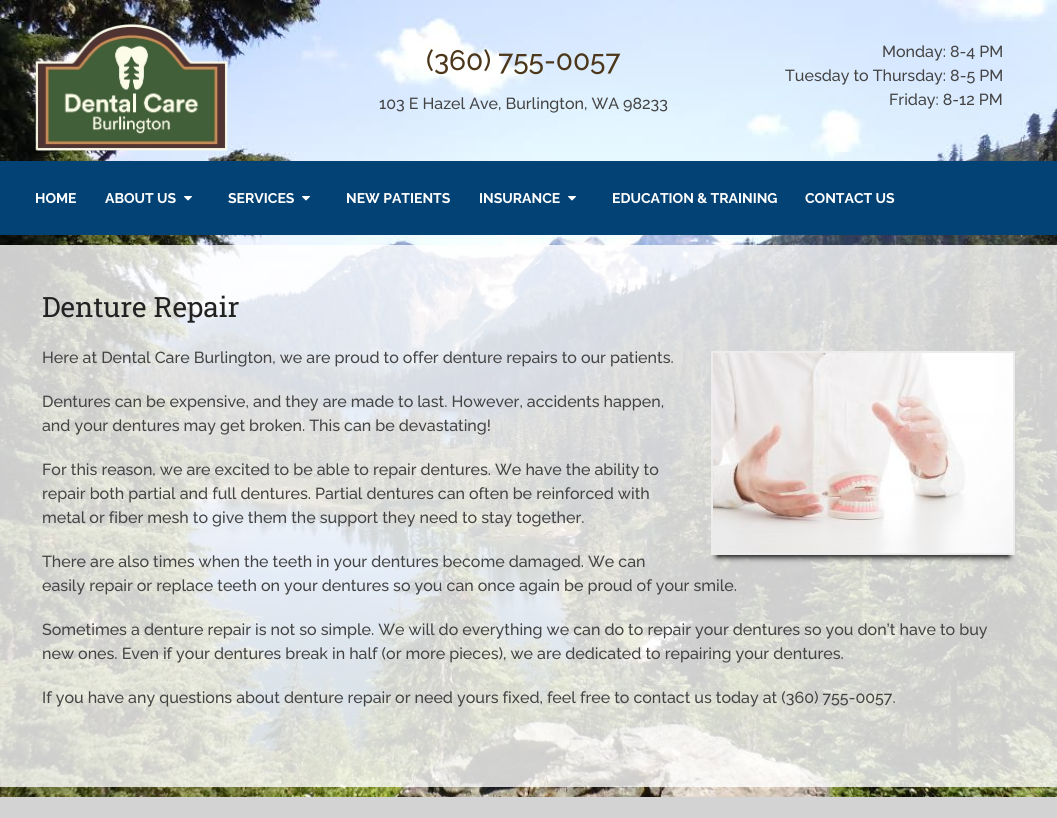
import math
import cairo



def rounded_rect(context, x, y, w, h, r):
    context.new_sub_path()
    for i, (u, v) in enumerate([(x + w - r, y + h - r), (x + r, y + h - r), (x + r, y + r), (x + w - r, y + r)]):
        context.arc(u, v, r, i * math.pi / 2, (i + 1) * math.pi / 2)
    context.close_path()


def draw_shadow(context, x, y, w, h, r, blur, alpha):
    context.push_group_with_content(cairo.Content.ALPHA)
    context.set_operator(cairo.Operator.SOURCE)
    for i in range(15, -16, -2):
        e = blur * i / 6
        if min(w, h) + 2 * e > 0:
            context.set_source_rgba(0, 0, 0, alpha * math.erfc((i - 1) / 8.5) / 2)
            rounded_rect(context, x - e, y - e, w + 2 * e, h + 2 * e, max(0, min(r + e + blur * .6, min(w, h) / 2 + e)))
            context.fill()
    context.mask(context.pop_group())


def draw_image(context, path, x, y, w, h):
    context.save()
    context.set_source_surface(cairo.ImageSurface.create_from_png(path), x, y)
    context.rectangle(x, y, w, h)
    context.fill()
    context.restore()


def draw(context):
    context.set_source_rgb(1, 1, 1)
    context.paint()
    draw_image(context, "images/1.png", 0, 0, 1057, 797)
    draw_image(context, "images/2.png", 35, 24, 193, 127)
    context.set_source_rgb(3 / 255, 66 / 255, 117 / 255)
    context.rectangle(0, 161, 1057, 74)
    context.fill()
    draw_image(context, "images/3.png", 184, 196, 8, 5)
    draw_image(context, "images/3.png", 302, 196, 8, 5)
    draw_image(context, "images/3.png", 568, 196, 8, 5)
    context.set_source_rgba(1, 1, 1, 0.8)
    context.rectangle(0, 245, 1057, 542)
    context.fill()
    context.set_source_rgb(0, 0, 0)
    draw_shadow(context, 717, 365, 292, 192, 0, 3, 1)
    context.rectangle(712, 352, 302, 202)
    context.set_source_rgb(236 / 255, 236 / 255, 236 / 255)
    context.stroke()
    draw_image(context, "images/4.png", 713, 353, 300, 200)
    context.set_source_rgb(211 / 255, 211 / 255, 211 / 255)
    context.rectangle(0, 797, 1057, 21)
    context.fill()
    context.select_font_face("Raleway Medium")
    context.set_font_size(28)
    context.set_source_rgb(76 / 255, 55 / 255, 26 / 255)
    context.move_to(426, 70)
    context.show_text("(360) 755-0057")
    context.set_font_size(16)
    context.set_source_rgb(68 / 255, 68 / 255, 68 / 255)
    context.move_to(379, 109)
    context.show_text("103 E Hazel Ave, Burlington, WA 98233")
    context.move_to(882, 57)
    context.show_text("Monday: 8-4 PM")
    context.move_to(785, 81)
    context.show_text("Tuesday to Thursday: 8-5 PM")
    context.move_to(889, 105)
    context.show_text("Friday: 8-12 PM")
    context.select_font_face("Raleway", cairo.FontSlant.NORMAL, cairo.FontWeight.BOLD)
    context.set_font_size(14)
    context.set_source_rgb(1, 1, 1)
    context.move_to(35, 203)
    context.show_text("HOME")
    context.move_to(105, 203)
    context.show_text("ABOUT US")
    context.move_to(228, 203)
    context.show_text("SERVICES")
    context.move_to(346, 203)
    context.show_text("NEW PATIENTS")
    context.move_to(479, 203)
    context.show_text("INSURANCE")
    context.move_to(612, 203)
    context.show_text("EDUCATION & TRAINING")
    context.move_to(805, 203)
    context.show_text("CONTACT US")
    context.select_font_face("Roboto Slab")
    context.set_font_size(28)
    context.set_source_rgb(34 / 255, 34 / 255, 34 / 255)
    context.move_to(42, 317)
    context.show_text("Denture Repair")
    context.select_font_face("Raleway Medium")
    context.set_font_size(16)
    context.set_source_rgb(68 / 255, 68 / 255, 68 / 255)
    context.move_to(42, 363)
    context.show_text("Here at Dental Care Burlington, we are proud to offer denture repairs to our patients.")
    context.move_to(42, 407)
    context.show_text("Dentures can be expensive, and they are made to last. However, accidents happen,")
    context.move_to(42, 431)
    context.show_text("and your dentures may get broken. This can be devastating!")
    context.move_to(42, 475)
    context.show_text("For this reason, we are excited to be able to repair dentures. We have the ability to")
    context.move_to(42, 499)
    context.show_text("repair both partial and full dentures. Partial dentures can often be reinforced with")
    context.move_to(42, 523)
    context.show_text("metal or fiber mesh to give them the support they need to stay together.")
    context.move_to(42, 567)
    context.show_text("There are also times when the teeth in your dentures become damaged. We can")
    context.move_to(42, 591)
    context.show_text("easily repair or replace teeth on your dentures so you can once again be proud of your smile.")
    context.move_to(42, 635)
    context.show_text("Sometimes a denture repair is not so simple. We will do everything we can do to repair your dentures so you don’t have to buy")
    context.move_to(42, 659)
    context.show_text("new ones. Even if your dentures break in half (or more pieces), we are dedicated to repairing your dentures.")
    context.move_to(42, 703)
    context.show_text("If you have any questions about denture repair or need yours fixed, feel free to contact us today at (360) 755-0057.")


surface = cairo.ImageSurface(cairo.Format.RGB24, 1057, 818)
context = cairo.Context(surface)
options = cairo.FontOptions()
options.set_hint_metrics(cairo.HintMetrics.OFF)
options.set_hint_style(cairo.HintStyle.NONE)
context.set_font_options(options)
context.set_miter_limit(4)
draw(context)
surface.write_to_png("out.png")
